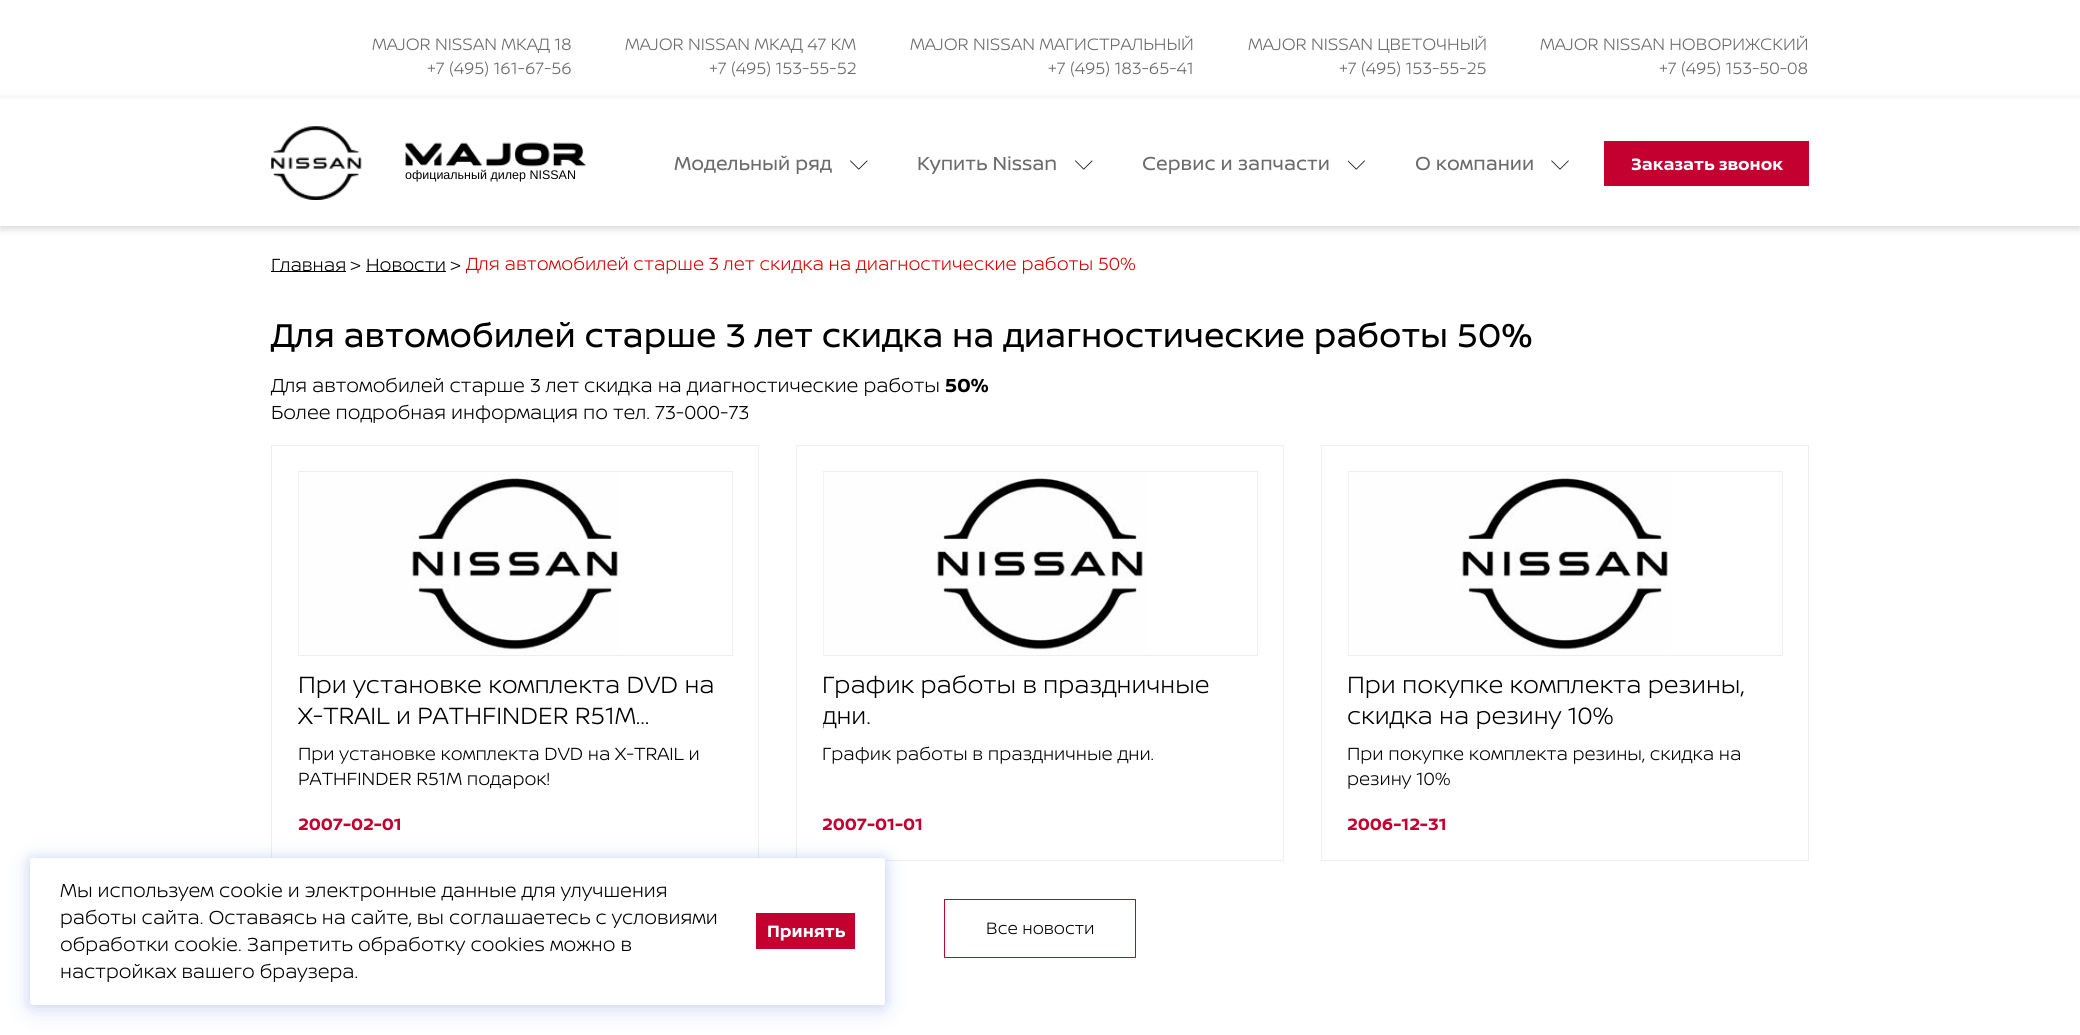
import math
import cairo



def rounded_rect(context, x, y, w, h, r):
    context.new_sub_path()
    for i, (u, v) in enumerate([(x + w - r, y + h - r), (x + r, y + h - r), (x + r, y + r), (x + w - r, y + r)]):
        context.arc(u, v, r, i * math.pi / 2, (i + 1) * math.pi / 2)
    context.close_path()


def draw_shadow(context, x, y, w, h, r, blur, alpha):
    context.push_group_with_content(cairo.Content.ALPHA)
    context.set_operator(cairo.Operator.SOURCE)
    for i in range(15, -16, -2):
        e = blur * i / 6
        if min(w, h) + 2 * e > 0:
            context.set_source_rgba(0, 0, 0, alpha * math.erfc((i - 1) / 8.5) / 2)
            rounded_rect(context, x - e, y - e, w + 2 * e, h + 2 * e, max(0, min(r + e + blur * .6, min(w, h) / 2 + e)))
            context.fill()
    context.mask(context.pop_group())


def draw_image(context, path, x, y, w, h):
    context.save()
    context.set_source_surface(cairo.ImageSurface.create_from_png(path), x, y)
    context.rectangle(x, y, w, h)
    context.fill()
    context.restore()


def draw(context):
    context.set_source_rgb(1, 1, 1)
    context.paint()
    context.save()
    context.set_fill_rule(cairo.FillRule.EVEN_ODD)
    context.new_path()
    context.move_to(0, 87)
    context.line_to(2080, 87)
    context.line_to(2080, 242)
    context.line_to(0, 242)
    context.close_path()
    context.move_to(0, 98)
    context.line_to(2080, 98)
    context.line_to(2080, 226)
    context.line_to(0, 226)
    context.close_path()
    context.clip()
    context.set_source_rgb(0, 0, 0)
    draw_shadow(context, 0, 100, 2080, 129, 0, 4, 0.16)
    context.restore()
    draw_image(context, "images/1.png", 850, 160, 18, 10)
    draw_image(context, "images/1.png", 1075, 160, 18, 10)
    draw_image(context, "images/2.png", 1348, 160, 17, 10)
    draw_image(context, "images/3.png", 1551, 160, 18, 10)
    context.set_source_rgb(195 / 255, 0, 47 / 255)
    context.rectangle(1604, 141, 205, 45)
    context.fill()
    draw_image(context, "images/4.png", 271, 126, 91, 74)
    draw_image(context, "images/5.png", 405, 142, 182, 25)
    context.set_source_rgb(0, 0, 0)
    context.rectangle(271, 271, 75, 1)
    context.fill()
    context.rectangle(366, 271, 80, 1)
    context.fill()
    context.rectangle(271.5, 445.5, 487, 415)
    context.set_source_rgb(238 / 255, 238 / 255, 238 / 255)
    context.set_line_width(1)
    context.stroke()
    context.rectangle(298.5, 471.5, 434, 184)
    context.stroke()
    draw_image(context, "images/6.png", 298, 473, 323, 182)
    context.rectangle(796.5, 445.5, 487, 415)
    context.stroke()
    context.rectangle(823.5, 471.5, 434, 184)
    context.stroke()
    draw_image(context, "images/6.png", 823, 473, 323, 182)
    context.rectangle(1321.5, 445.5, 487, 415)
    context.stroke()
    context.rectangle(1348.5, 471.5, 434, 184)
    context.stroke()
    draw_image(context, "images/6.png", 1348, 473, 323, 182)
    context.rectangle(944.5, 899.5, 191, 58)
    context.set_source_rgb(195 / 255, 0, 47 / 255)
    context.stroke()
    context.set_source_rgb(30 / 255, 75 / 255, 210 / 255)
    draw_shadow(context, 30, 858, 855, 147, 2.5, 6, 0.15)
    draw_shadow(context, 30, 863, 855, 147, 2.5, 12.5, 0.15)
    context.set_source_rgb(1, 1, 1)
    rounded_rect(context, 30, 858, 855, 147, 2.5)
    context.fill()
    context.set_source_rgb(195 / 255, 0, 47 / 255)
    context.rectangle(756, 913, 99, 36)
    context.fill()
    context.select_font_face("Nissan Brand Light")
    context.set_font_size(17.5)
    context.set_source_rgb(107 / 255, 107 / 255, 107 / 255)
    context.move_to(372, 50)
    context.show_text("MAJOR NISSAN МКАД 18")
    context.move_to(427, 74)
    context.show_text("+7 (495) 161-67-56")
    context.move_to(625, 50)
    context.show_text("MAJOR NISSAN МКАД 47 КМ")
    context.move_to(709, 74)
    context.show_text("+7 (495) 153-55-52")
    context.move_to(910, 50)
    context.show_text("MAJOR NISSAN МАГИСТРАЛЬНЫЙ")
    context.move_to(1048, 74)
    context.show_text("+7 (495) 183-65-41")
    context.move_to(1248, 50)
    context.show_text("MAJOR NISSAN ЦВЕТОЧНЫЙ")
    context.move_to(1339, 74)
    context.show_text("+7 (495) 153-55-25")
    context.move_to(1540, 50)
    context.show_text("MAJOR NISSAN НОВОРИЖСКИЙ")
    context.move_to(1659, 74)
    context.show_text("+7 (495) 153-50-08")
    context.select_font_face("Nissan Brand")
    context.set_font_size(20)
    context.move_to(674, 170)
    context.show_text("Модельный ряд")
    context.move_to(917, 170)
    context.show_text("Купить Nissan")
    context.move_to(1142, 170)
    context.show_text("Сервис и запчасти")
    context.move_to(1415, 170)
    context.show_text("О компании")
    context.select_font_face("Nissan Brand", cairo.FontSlant.NORMAL, cairo.FontWeight.BOLD)
    context.set_font_size(17.5)
    context.set_source_rgb(1, 1, 1)
    context.move_to(1631, 170)
    context.show_text("Заказать звонок")
    context.select_font_face("Liberation Sans")
    context.set_font_size(12.5)
    context.set_source_rgb(0, 0, 0)
    context.move_to(405, 179)
    context.show_text("официальный дилер NISSAN")
    context.select_font_face("Nissan Brand Light")
    context.set_font_size(18.75)
    context.move_to(271, 271)
    context.show_text("Главная")
    context.move_to(350, 272)
    context.show_text(">")
    context.move_to(366, 271)
    context.show_text("Новости")
    context.move_to(450, 272)
    context.show_text(">")
    context.set_source_rgb(216 / 255, 0, 0)
    context.move_to(466, 270)
    context.show_text("Для автомобилей старше 3 лет скидка на диагностические работы 50%")
    context.select_font_face("Nissan Brand")
    context.set_font_size(35)
    context.set_source_rgb(0, 0, 0)
    context.move_to(271, 347)
    context.show_text("Для автомобилей старше 3 лет скидка на диагностические работы 50%")
    context.select_font_face("Nissan Brand Light")
    context.set_font_size(20)
    context.move_to(271, 392)
    context.show_text("Для автомобилей старше 3 лет скидка на диагностические работы")
    context.select_font_face("Nissan Brand", cairo.FontSlant.NORMAL, cairo.FontWeight.BOLD)
    context.move_to(945, 392)
    context.show_text("50%")
    context.select_font_face("Nissan Brand Light")
    context.move_to(271, 419)
    context.show_text("Более подробная информация по тел. 73-000-73")
    context.set_font_size(25)
    context.move_to(298, 693)
    context.show_text("При установке комплекта DVD на")
    context.save()
    context.rectangle(298, 668, 435, 62)
    context.clip()
    context.move_to(298, 724)
    context.show_text("X-TRAIL и PATHFINDER R51M…")
    context.restore()
    context.set_font_size(18.75)
    context.move_to(298, 760)
    context.show_text("При установке комплекта DVD на X-TRAIL и")
    context.move_to(298, 785)
    context.show_text("PATHFINDER R51M подарок!")
    context.select_font_face("Nissan Brand", cairo.FontSlant.NORMAL, cairo.FontWeight.BOLD)
    context.set_font_size(17.5)
    context.set_source_rgb(195 / 255, 0, 47 / 255)
    context.move_to(298, 830)
    context.show_text("2007-02-01")
    context.select_font_face("Nissan Brand Light")
    context.set_font_size(25)
    context.set_source_rgb(0, 0, 0)
    context.move_to(822, 693)
    context.show_text("График работы в праздничные")
    context.save()
    context.rectangle(823, 668, 435, 62)
    context.clip()
    context.move_to(822, 724)
    context.show_text("дни.")
    context.restore()
    context.set_font_size(18.75)
    context.move_to(822, 760)
    context.show_text("График работы в праздничные дни.")
    context.select_font_face("Nissan Brand", cairo.FontSlant.NORMAL, cairo.FontWeight.BOLD)
    context.set_font_size(17.5)
    context.set_source_rgb(195 / 255, 0, 47 / 255)
    context.move_to(822, 830)
    context.show_text("2007-01-01")
    context.select_font_face("Nissan Brand Light")
    context.set_font_size(25)
    context.set_source_rgb(0, 0, 0)
    context.move_to(1347, 693)
    context.show_text("При покупке комплекта резины,")
    context.move_to(1347, 724)
    context.show_text("скидка на резину 10%")
    context.set_font_size(18.75)
    context.move_to(1347, 760)
    context.show_text("При покупке комплекта резины, скидка на")
    context.move_to(1347, 785)
    context.show_text("резину 10%")
    context.select_font_face("Nissan Brand", cairo.FontSlant.NORMAL, cairo.FontWeight.BOLD)
    context.set_font_size(17.5)
    context.set_source_rgb(195 / 255, 0, 47 / 255)
    context.move_to(1347, 830)
    context.show_text("2006-12-31")
    context.select_font_face("Nissan Brand Light")
    context.set_source_rgb(0, 0, 0)
    context.move_to(986, 934)
    context.show_text("Все новости")
    context.set_font_size(20)
    context.move_to(60, 897)
    context.show_text("Мы используем cookie и электронные данные для улучшения")
    context.move_to(60, 924)
    context.show_text("работы сайта. Оставаясь на сайте, вы соглашаетесь с условиями")
    context.move_to(60, 951)
    context.show_text("обработки cookie. Запретить обработку cookies можно в")
    context.move_to(60, 978)
    context.show_text("настройках вашего браузера.")
    context.select_font_face("Nissan Brand", cairo.FontSlant.NORMAL, cairo.FontWeight.BOLD)
    context.set_font_size(17.5)
    context.set_source_rgb(1, 1, 1)
    context.move_to(767, 937)
    context.show_text("Принять")


surface = cairo.ImageSurface(cairo.Format.RGB24, 2080, 1035)
context = cairo.Context(surface)
options = cairo.FontOptions()
options.set_hint_metrics(cairo.HintMetrics.OFF)
options.set_hint_style(cairo.HintStyle.NONE)
context.set_font_options(options)
context.set_miter_limit(4)
draw(context)
surface.write_to_png("out.png")
